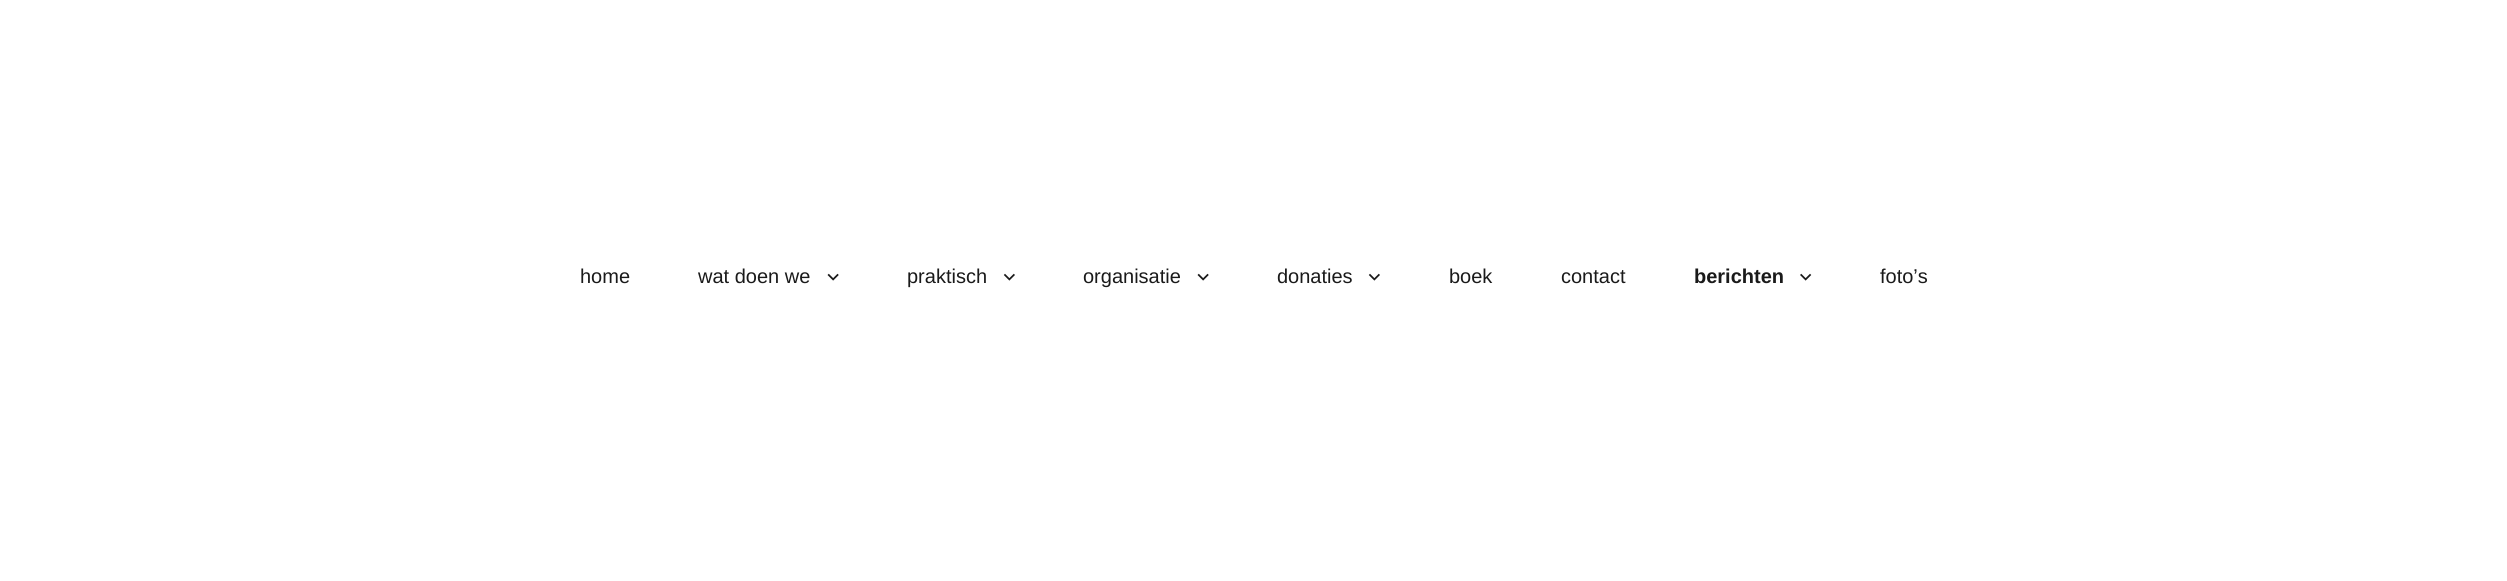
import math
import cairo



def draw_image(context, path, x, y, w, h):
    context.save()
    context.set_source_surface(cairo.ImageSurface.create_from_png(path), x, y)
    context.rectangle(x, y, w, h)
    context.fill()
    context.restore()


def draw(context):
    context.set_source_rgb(1, 1, 1)
    context.paint()
    draw_image(context, "images/1.png", 827, 273, 12, 8)
    draw_image(context, "images/2.png", 1003, 273, 12, 8)
    draw_image(context, "images/1.png", 1197, 273, 12, 8)
    draw_image(context, "images/2.png", 1368, 273, 12, 8)
    draw_image(context, "images/3.png", 1800, 273, 12, 8)
    context.select_font_face("Liberation Sans")
    context.set_font_size(20)
    context.set_source_rgb(26 / 255, 26 / 255, 26 / 255)
    context.move_to(580, 283)
    context.show_text("home")
    context.move_to(698, 283)
    context.show_text("wat doen we")
    context.move_to(907, 283)
    context.show_text("praktisch")
    context.move_to(1083, 283)
    context.show_text("organisatie")
    context.move_to(1277, 283)
    context.show_text("donaties")
    context.move_to(1449, 283)
    context.show_text("boek")
    context.move_to(1561, 283)
    context.show_text("contact")
    context.select_font_face("Liberation Sans", cairo.FontSlant.NORMAL, cairo.FontWeight.BOLD)
    context.move_to(1694, 283)
    context.show_text("berichten")
    context.select_font_face("Liberation Sans")
    context.move_to(1880, 283)
    context.show_text("foto’s")


surface = cairo.ImageSurface(cairo.Format.RGB24, 2507, 581)
context = cairo.Context(surface)
options = cairo.FontOptions()
options.set_hint_metrics(cairo.HintMetrics.OFF)
options.set_hint_style(cairo.HintStyle.NONE)
context.set_font_options(options)
context.set_miter_limit(4)
draw(context)
surface.write_to_png("out.png")
